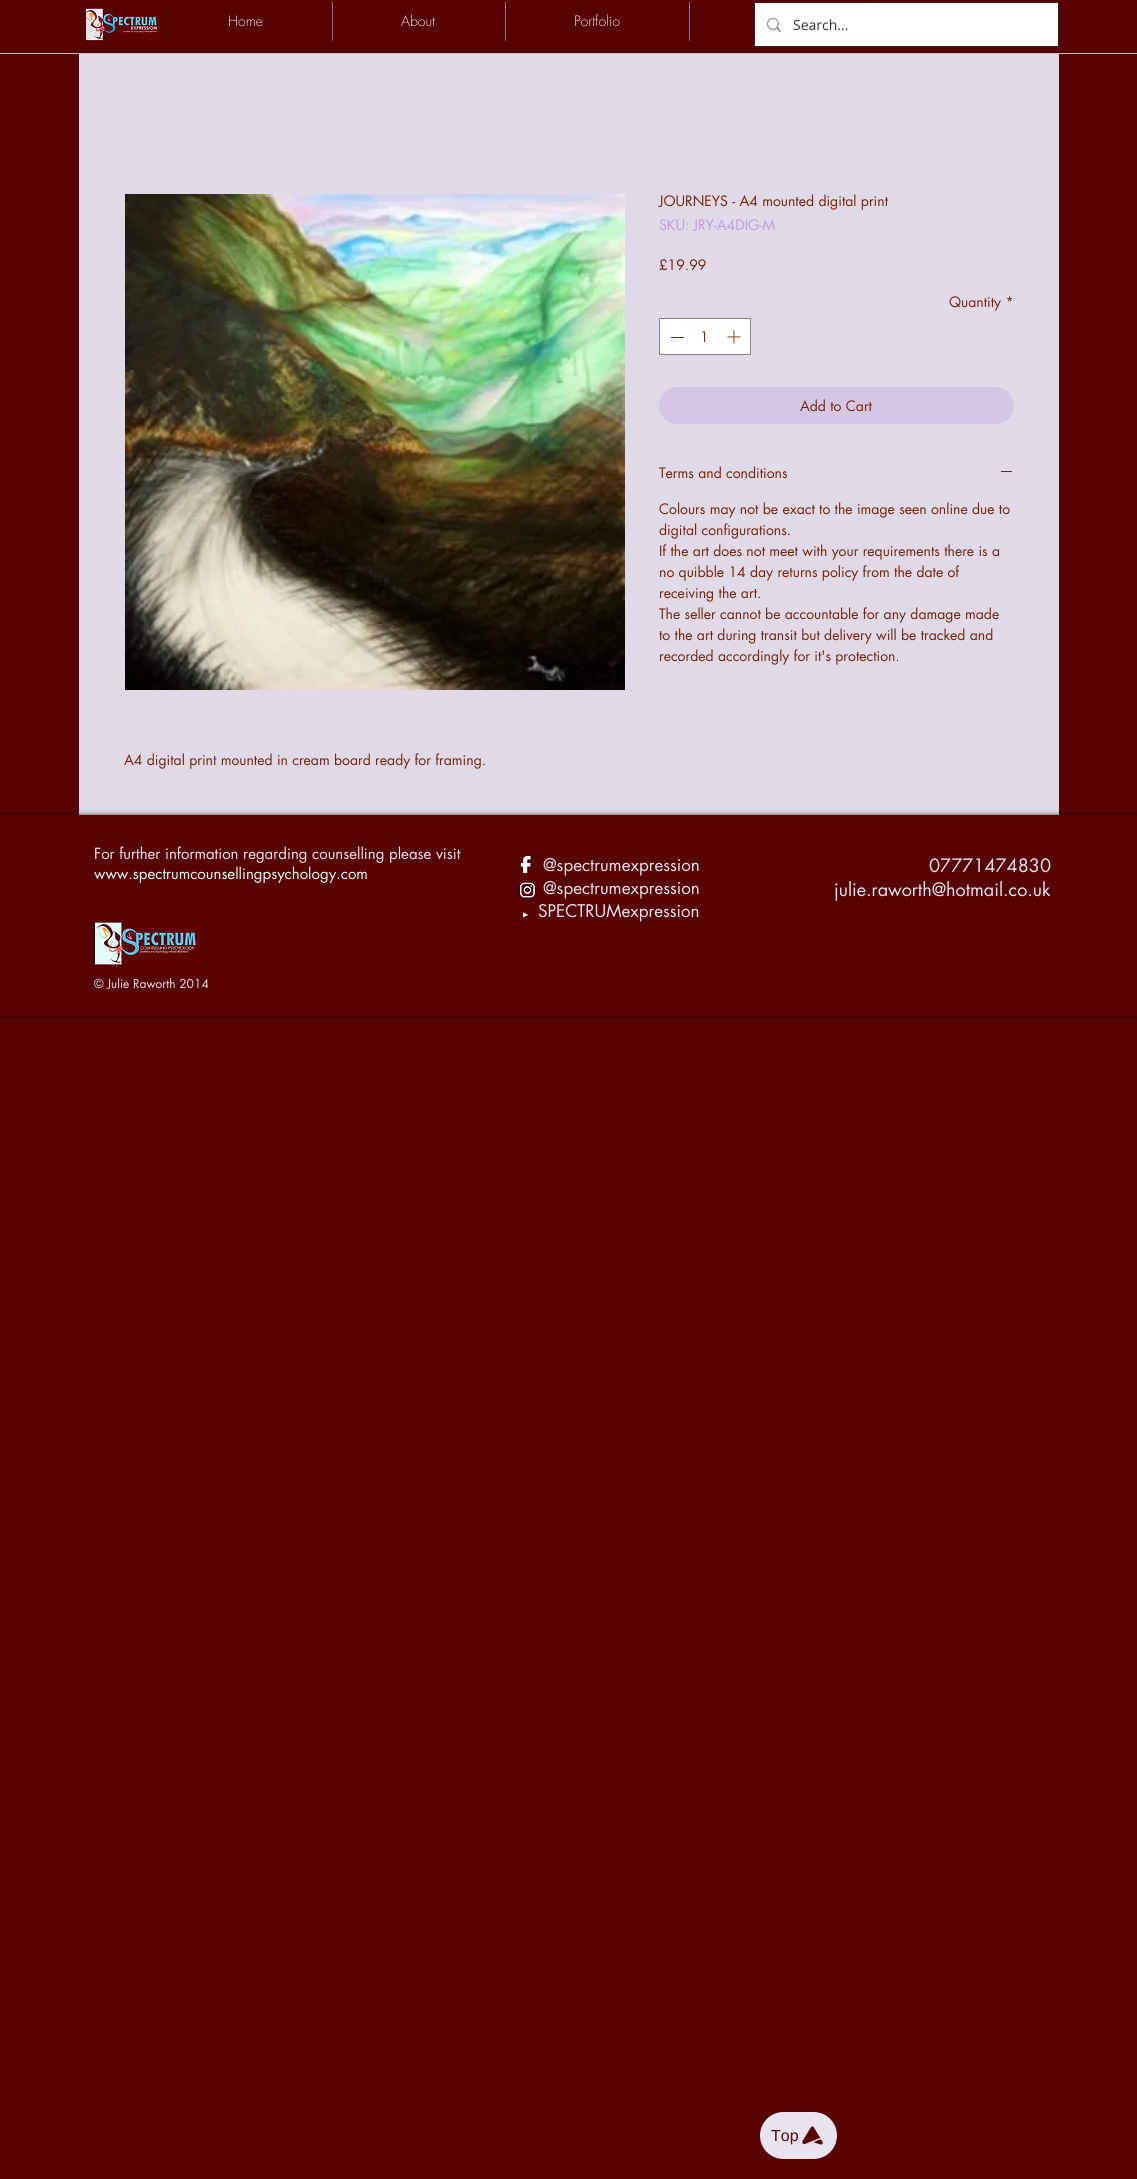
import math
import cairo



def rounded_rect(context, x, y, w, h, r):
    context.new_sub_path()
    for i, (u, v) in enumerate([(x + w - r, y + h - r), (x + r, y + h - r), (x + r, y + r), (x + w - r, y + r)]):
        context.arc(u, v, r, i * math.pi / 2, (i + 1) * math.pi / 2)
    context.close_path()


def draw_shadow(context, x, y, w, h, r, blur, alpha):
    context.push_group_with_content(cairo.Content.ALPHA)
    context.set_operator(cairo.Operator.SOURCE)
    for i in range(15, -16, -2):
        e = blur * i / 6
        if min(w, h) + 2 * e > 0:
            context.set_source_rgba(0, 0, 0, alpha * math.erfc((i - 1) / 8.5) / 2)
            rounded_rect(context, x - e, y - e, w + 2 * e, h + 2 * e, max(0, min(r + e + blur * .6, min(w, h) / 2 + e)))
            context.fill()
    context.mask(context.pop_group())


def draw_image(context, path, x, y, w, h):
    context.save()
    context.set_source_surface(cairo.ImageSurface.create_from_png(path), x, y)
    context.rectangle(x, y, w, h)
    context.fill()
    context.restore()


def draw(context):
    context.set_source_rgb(88 / 255, 3 / 255, 3 / 255)
    context.paint()
    draw_image(context, "images/1.png", 86, 8, 76, 33)
    context.set_source_rgb(138 / 255, 111 / 255, 166 / 255)
    context.rectangle(689, 2, 1, 39)
    context.fill()
    context.rectangle(872, 2, 1, 1)
    context.fill()
    context.rectangle(332, 2, 1, 39)
    context.fill()
    context.rectangle(505, 2, 1, 39)
    context.fill()
    context.rectangle(754.5, 2.5, 304, 44)
    context.set_source_rgba(49 / 255, 49 / 255, 49 / 255, 0.6)
    context.set_line_width(1)
    context.stroke()
    context.set_source_rgb(1, 1, 1)
    context.rectangle(755, 3, 303, 43)
    context.fill()
    draw_image(context, "images/2.png", 767, 18, 14, 14)
    context.set_source_rgb(192 / 255, 192 / 255, 192 / 255)
    context.rectangle(0, 53, 1137, 1)
    context.fill()
    context.set_source_rgb(224 / 255, 217 / 255, 231 / 255)
    context.rectangle(79, 54, 980, 761)
    context.fill()
    context.set_source_rgb(1, 1, 1)
    context.rectangle(659.5, 318.5, 91, 36)
    context.fill_preserve()
    context.set_source_rgb(131 / 255, 131 / 255, 131 / 255)
    context.stroke()
    context.set_source_rgb(120 / 255, 35 / 255, 9 / 255)
    context.rectangle(671, 337, 13, 1)
    context.fill()
    draw_image(context, "images/3.png", 727, 330, 14, 14)
    context.set_source_rgb(212 / 255, 199 / 255, 227 / 255)
    rounded_rect(context, 659, 387, 355, 37, 18.5)
    context.fill()
    context.set_source_rgb(120 / 255, 35 / 255, 9 / 255)
    context.rectangle(1001, 471, 11, 1)
    context.fill()
    draw_image(context, "images/4.png", 125, 194, 500, 496)
    context.save()
    context.set_fill_rule(cairo.FillRule.EVEN_ODD)
    context.new_path()
    context.move_to(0, 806)
    context.line_to(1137, 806)
    context.line_to(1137, 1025)
    context.line_to(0, 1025)
    context.close_path()
    context.move_to(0, 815)
    context.line_to(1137, 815)
    context.line_to(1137, 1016)
    context.line_to(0, 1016)
    context.close_path()
    context.clip()
    context.set_source_rgb(0, 0, 0)
    draw_shadow(context, 0, 815, 1137, 201, 0, 2.5, 0.7)
    context.restore()
    draw_image(context, "images/5.png", 518, 854, 15, 19)
    draw_image(context, "images/6.png", 517, 880, 21, 20)
    draw_image(context, "images/7.png", 522, 911, 7, 9)
    draw_image(context, "images/8.png", 94, 922, 109, 43)
    context.set_source_rgb(234 / 255, 227 / 255, 241 / 255)
    rounded_rect(context, 760, 2112, 77, 47, 23.5)
    context.fill()
    draw_image(context, "images/9.png", 802, 2126, 21, 19)
    context.select_font_face("futura Light")
    context.set_font_size(14)
    context.move_to(228, 26)
    context.show_text("Home")
    context.move_to(401, 26)
    context.show_text("About")
    context.move_to(574, 26)
    context.show_text("Portfolio")
    context.select_font_face("Open Sans")
    context.set_source_rgb(49 / 255, 49 / 255, 49 / 255)
    context.move_to(793, 30)
    context.show_text("Search...")
    context.select_font_face("futura")
    context.set_source_rgb(120 / 255, 35 / 255, 9 / 255)
    context.move_to(659, 206)
    context.show_text("JOURNEYS - A4 mounted digital print")
    context.set_source_rgb(190 / 255, 158 / 255, 223 / 255)
    context.move_to(659, 230)
    context.show_text("SKU: JRY-A4DIG-M")
    context.set_source_rgb(120 / 255, 35 / 255, 9 / 255)
    context.move_to(659, 270)
    context.show_text("£19.99")
    context.move_to(949, 307)
    context.show_text("Quantity *")
    context.move_to(700, 342)
    context.show_text("1")
    context.move_to(800, 411)
    context.show_text("Add to Cart")
    context.move_to(659, 478)
    context.show_text("Terms and conditions")
    context.move_to(659, 514)
    context.show_text("Colours may not be exact to the image seen online due to")
    context.move_to(659, 535)
    context.show_text("digital configurations.")
    context.move_to(659, 556)
    context.show_text("If the art does not meet with your requirements there is a")
    context.move_to(659, 577)
    context.show_text("no quibble 14 day returns policy from the date of")
    context.move_to(659, 598)
    context.show_text("receiving the art.")
    context.move_to(659, 619)
    context.show_text("The seller cannot be accountable for any damage made")
    context.move_to(659, 640)
    context.show_text("to the art during transit but delivery will be tracked and")
    context.move_to(659, 661)
    context.show_text("recorded accordingly for it's protection.")
    context.move_to(124, 765)
    context.show_text("A4 digital print mounted in cream board ready for framing.")
    context.set_font_size(15)
    context.set_source_rgb(234 / 255, 227 / 255, 241 / 255)
    context.move_to(94, 859)
    context.show_text("For further information regarding counselling please visit")
    context.set_source_rgb(232 / 255, 250 / 255, 248 / 255)
    context.move_to(94, 879)
    context.show_text("www.spectrumcounsellingpsychology.com")
    context.set_font_size(17)
    context.set_source_rgb(234 / 255, 227 / 255, 241 / 255)
    context.move_to(543, 871)
    context.show_text("@spectrumexpression")
    context.move_to(543, 894)
    context.show_text("@spectrumexpression")
    context.move_to(538, 917)
    context.show_text("SPECTRUMexpression")
    context.set_font_size(18)
    context.move_to(929, 872)
    context.show_text("07771474830")
    context.move_to(834, 896)
    context.show_text("julie.raworth@hotmail.co.uk")
    context.set_font_size(12)
    context.move_to(94, 988)
    context.show_text("© Julie Raworth 2014")
    context.select_font_face("Liberation Sans")
    context.set_font_size(16)
    context.set_source_rgb(88 / 255, 3 / 255, 3 / 255)
    context.move_to(771, 2141)
    context.show_text("Top")


surface = cairo.ImageSurface(cairo.Format.RGB24, 1137, 2179)
context = cairo.Context(surface)
options = cairo.FontOptions()
options.set_hint_metrics(cairo.HintMetrics.OFF)
options.set_hint_style(cairo.HintStyle.NONE)
context.set_font_options(options)
context.set_miter_limit(4)
draw(context)
surface.write_to_png("out.png")
